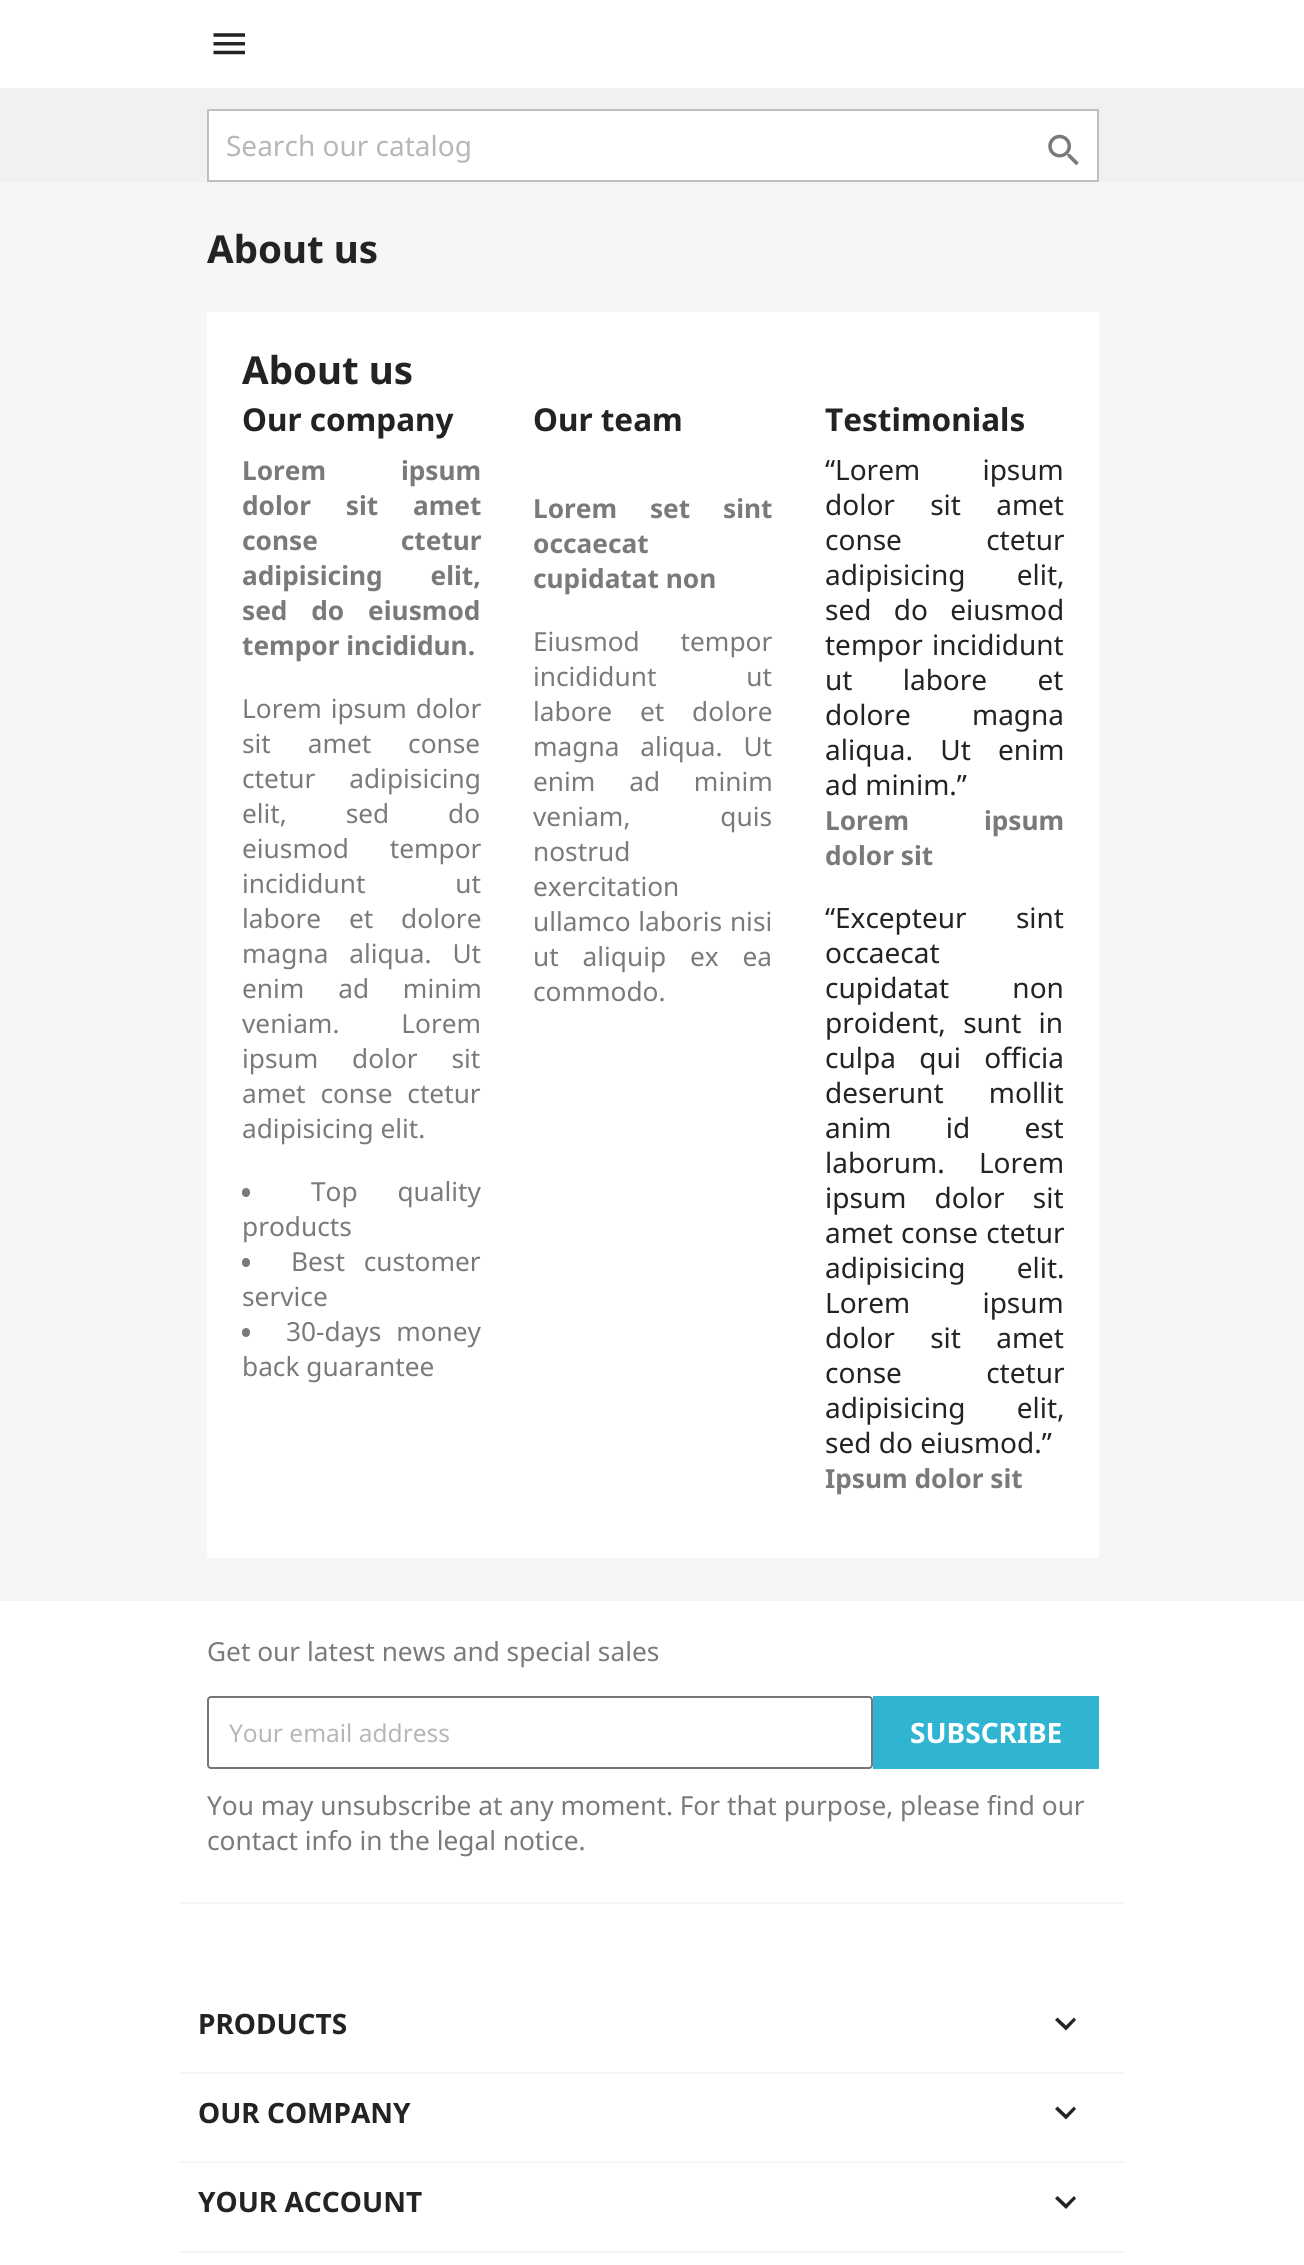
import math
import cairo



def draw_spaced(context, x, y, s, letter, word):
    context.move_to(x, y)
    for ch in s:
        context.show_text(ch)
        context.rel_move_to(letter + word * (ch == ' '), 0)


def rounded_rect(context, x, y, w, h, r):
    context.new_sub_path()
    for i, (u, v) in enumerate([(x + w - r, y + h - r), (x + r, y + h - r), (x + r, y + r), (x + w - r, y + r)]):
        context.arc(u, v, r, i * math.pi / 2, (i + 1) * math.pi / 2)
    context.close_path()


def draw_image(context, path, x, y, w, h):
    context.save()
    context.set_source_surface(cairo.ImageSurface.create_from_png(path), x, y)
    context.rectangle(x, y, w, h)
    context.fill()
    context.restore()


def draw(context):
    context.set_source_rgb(1, 1, 1)
    context.paint()
    context.set_source_rgb(241 / 255, 241 / 255, 241 / 255)
    context.rectangle(0, 88, 1304, 94)
    context.fill()
    draw_image(context, "images/1.png", 213, 33, 32, 22)
    context.set_source_rgb(1, 1, 1)
    context.rectangle(208, 110, 890, 71)
    context.fill_preserve()
    context.set_source_rgb(191 / 255, 191 / 255, 191 / 255)
    context.stroke()
    draw_image(context, "images/2.png", 1048, 134, 31, 32)
    context.set_source_rgb(246 / 255, 246 / 255, 246 / 255)
    context.rectangle(0, 182, 1304, 1419)
    context.fill()
    context.set_source_rgb(1, 1, 1)
    context.rectangle(207, 312, 892, 1246)
    context.fill()
    context.set_source_rgb(122 / 255, 122 / 255, 122 / 255)
    rounded_rect(context, 242, 1188, 8, 9, 4)
    context.fill()
    rounded_rect(context, 242, 1258, 8, 9, 4)
    context.fill()
    rounded_rect(context, 242, 1328, 8, 9, 4)
    context.fill()
    context.set_source_rgb(246 / 255, 246 / 255, 246 / 255)
    context.rectangle(180, 1902, 945, 2)
    context.fill()
    rounded_rect(context, 208, 1697, 664, 71, 3)
    context.set_source_rgb(118 / 255, 118 / 255, 118 / 255)
    context.stroke()
    context.set_source_rgb(47 / 255, 181 / 255, 210 / 255)
    context.rectangle(873, 1696, 226, 73)
    context.fill()
    context.set_source_rgb(246 / 255, 246 / 255, 246 / 255)
    context.rectangle(180, 2072, 945, 2)
    context.fill()
    context.set_source_rgb(35 / 255, 35 / 255, 35 / 255)
    context.new_path()
    context.move_to(1057.5, 2017.5)
    context.line_to(1066, 2025.5)
    context.line_to(1074, 2017.5)
    context.line_to(1076, 2020)
    context.line_to(1066, 2030.5)
    context.line_to(1055, 2020)
    context.close_path()
    context.fill()
    context.set_source_rgb(246 / 255, 246 / 255, 246 / 255)
    context.rectangle(180, 2161, 945, 2)
    context.fill()
    context.set_source_rgb(35 / 255, 35 / 255, 35 / 255)
    context.new_path()
    context.move_to(1057.5, 2106.5)
    context.line_to(1066, 2114.5)
    context.line_to(1074, 2106.5)
    context.line_to(1076, 2109)
    context.line_to(1066, 2119.5)
    context.line_to(1055, 2109)
    context.close_path()
    context.fill()
    context.set_source_rgb(246 / 255, 246 / 255, 246 / 255)
    context.rectangle(180, 2251, 945, 2)
    context.fill()
    context.set_source_rgb(35 / 255, 35 / 255, 35 / 255)
    context.new_path()
    context.move_to(1057.5, 2196)
    context.line_to(1066, 2204)
    context.line_to(1074, 2196)
    context.line_to(1076, 2198.5)
    context.line_to(1066, 2209)
    context.line_to(1055, 2198.5)
    context.close_path()
    context.fill()
    context.select_font_face("Noto Sans")
    context.set_font_size(28)
    context.set_source_rgb(183 / 255, 183 / 255, 183 / 255)
    context.move_to(226, 156)
    context.show_text("Search our catalog")
    context.select_font_face("Noto Sans", cairo.FontSlant.NORMAL, cairo.FontWeight.BOLD)
    context.set_font_size(38.5)
    context.set_source_rgb(35 / 255, 35 / 255, 35 / 255)
    context.move_to(207, 263)
    context.show_text("About us")
    context.move_to(242, 384)
    context.show_text("About us")
    context.set_font_size(31.5)
    context.move_to(242, 431)
    context.show_text("Our company")
    context.set_font_size(26.25)
    context.set_source_rgb(122 / 255, 122 / 255, 122 / 255)
    draw_spaced(context, 242, 480, "Lorem ipsum", 0, 68)
    draw_spaced(context, 242, 515, "dolor sit amet", 0, 28)
    draw_spaced(context, 242, 550, "conse ctetur", 0, 76)
    draw_spaced(context, 242, 585, "adipisicing elit,", 0, 41)
    draw_spaced(context, 242, 620, "sed do eiusmod", 0, 17)
    context.move_to(242, 655)
    context.show_text("tempor incididun.")
    context.select_font_face("Noto Sans")
    draw_spaced(context, 242, 718, "Lorem ipsum dolor", 0, 2)
    draw_spaced(context, 242, 753, "sit amet conse", 0, 30)
    draw_spaced(context, 242, 788, "ctetur adipisicing", 0, 27)
    draw_spaced(context, 242, 823, "elit, sed do", 0, 52)
    draw_spaced(context, 242, 858, "eiusmod tempor", 0, 34)
    draw_spaced(context, 242, 893, "incididunt ut", 0, 83)
    draw_spaced(context, 242, 928, "labore et dolore", 0, 21)
    draw_spaced(context, 242, 963, "magna aliqua. Ut", 0, 14)
    draw_spaced(context, 242, 998, "enim ad minim", 0, 27)
    draw_spaced(context, 242, 1033, "veniam. Lorem", 0, 55)
    draw_spaced(context, 242, 1068, "ipsum dolor sit", 0, 27)
    draw_spaced(context, 242, 1103, "amet conse ctetur", 0, 8)
    context.move_to(242, 1138)
    context.show_text("adipisicing elit.")
    draw_spaced(context, 311, 1201, "Top quality", 0, 33)
    context.move_to(242, 1236)
    context.show_text("products")
    draw_spaced(context, 291, 1271, "Best customer", 0, 12)
    context.move_to(242, 1306)
    context.show_text("service")
    draw_spaced(context, 286, 1341, "30-days money", 0, 8)
    context.move_to(242, 1376)
    context.show_text("back guarantee")
    context.select_font_face("Noto Sans", cairo.FontSlant.NORMAL, cairo.FontWeight.BOLD)
    context.set_font_size(31.5)
    context.set_source_rgb(35 / 255, 35 / 255, 35 / 255)
    context.move_to(533, 431)
    context.show_text("Our team")
    context.set_font_size(26.25)
    context.set_source_rgb(122 / 255, 122 / 255, 122 / 255)
    draw_spaced(context, 533, 518, "Lorem set sint", 0, 26)
    context.move_to(533, 553)
    context.show_text("occaecat")
    context.move_to(533, 588)
    context.show_text("cupidatat non")
    context.select_font_face("Noto Sans")
    draw_spaced(context, 533, 651, "Eiusmod tempor", 0, 34)
    draw_spaced(context, 533, 686, "incididunt ut", 0, 83)
    draw_spaced(context, 533, 721, "labore et dolore", 0, 21)
    draw_spaced(context, 533, 756, "magna aliqua. Ut", 0, 14)
    draw_spaced(context, 533, 791, "enim ad minim", 0, 27)
    draw_spaced(context, 533, 826, "veniam, quis", 0, 83)
    context.move_to(533, 861)
    context.show_text("nostrud")
    context.move_to(533, 896)
    context.show_text("exercitation")
    draw_spaced(context, 533, 931, "ullamco laboris nisi", 0, 1)
    draw_spaced(context, 533, 966, "ut aliquip ex ea", 0, 17)
    context.move_to(533, 1001)
    context.show_text("commodo.")
    context.select_font_face("Noto Sans", cairo.FontSlant.NORMAL, cairo.FontWeight.BOLD)
    context.set_font_size(31.5)
    context.set_source_rgb(35 / 255, 35 / 255, 35 / 255)
    context.move_to(825, 431)
    context.show_text("Testimonials")
    context.select_font_face("Noto Sans")
    context.set_font_size(28)
    context.move_to(825, 480)
    context.show_text("“")
    draw_spaced(context, 835, 480, "Lorem ipsum", 0, 55)
    draw_spaced(context, 825, 515, "dolor sit amet", 0, 28)
    draw_spaced(context, 825, 550, "conse ctetur", 0, 77)
    draw_spaced(context, 825, 585, "adipisicing elit,", 0, 44)
    draw_spaced(context, 825, 620, "sed do eiusmod", 0, 15)
    draw_spaced(context, 825, 655, "tempor incididunt", 0, 2)
    draw_spaced(context, 825, 690, "ut labore et", 0, 43)
    draw_spaced(context, 825, 725, "dolore magna", 0, 54)
    draw_spaced(context, 825, 760, "aliqua. Ut enim", 0, 20)
    context.move_to(825, 795)
    context.show_text("ad minim.”")
    context.select_font_face("Noto Sans", cairo.FontSlant.NORMAL, cairo.FontWeight.BOLD)
    context.set_font_size(26.25)
    context.set_source_rgb(122 / 255, 122 / 255, 122 / 255)
    draw_spaced(context, 825, 830, "Lorem ipsum", 0, 68)
    context.move_to(825, 865)
    context.show_text("dolor sit")
    context.select_font_face("Noto Sans")
    context.set_font_size(28)
    context.set_source_rgb(35 / 255, 35 / 255, 35 / 255)
    context.move_to(825, 928)
    context.show_text("“")
    draw_spaced(context, 835, 928, "Excepteur sint", 0, 42)
    context.move_to(825, 963)
    context.show_text("occaecat")
    draw_spaced(context, 825, 998, "cupidatat non", 0, 56)
    draw_spaced(context, 825, 1033, "proident, sunt in", 0, 10)
    draw_spaced(context, 825, 1068, "culpa qui officia", 0, 16)
    draw_spaced(context, 825, 1103, "deserunt mollit", 0, 38)
    draw_spaced(context, 825, 1138, "anim id est", 0, 47)
    draw_spaced(context, 825, 1173, "laborum. Lorem", 0, 27)
    draw_spaced(context, 825, 1208, "ipsum dolor sit", 0, 21)
    draw_spaced(context, 825, 1243, "amet conse ctetur", 0, 1)
    draw_spaced(context, 825, 1278, "adipisicing elit.", 0, 44)
    draw_spaced(context, 825, 1313, "Lorem ipsum", 0, 65)
    draw_spaced(context, 825, 1348, "dolor sit amet", 0, 28)
    draw_spaced(context, 825, 1383, "conse ctetur", 0, 77)
    draw_spaced(context, 825, 1418, "adipisicing elit,", 0, 44)
    context.move_to(825, 1453)
    context.show_text("sed do eiusmod.”")
    context.select_font_face("Noto Sans", cairo.FontSlant.NORMAL, cairo.FontWeight.BOLD)
    context.set_font_size(26.25)
    context.set_source_rgb(122 / 255, 122 / 255, 122 / 255)
    context.move_to(825, 1488)
    context.show_text("Ipsum dolor sit")
    context.select_font_face("Noto Sans")
    context.move_to(207, 1661)
    context.show_text("Get our latest news and special sales")
    context.set_font_size(24.5)
    context.set_source_rgb(183 / 255, 183 / 255, 183 / 255)
    context.move_to(229, 1742)
    context.show_text("Your email address")
    context.select_font_face("Noto Sans", cairo.FontSlant.NORMAL, cairo.FontWeight.BOLD)
    context.set_font_size(28)
    context.set_source_rgb(1, 1, 1)
    context.move_to(910, 1743)
    context.show_text("SUBSCRIBE")
    context.select_font_face("Noto Sans")
    context.set_font_size(26.25)
    context.set_source_rgb(122 / 255, 122 / 255, 122 / 255)
    context.move_to(207, 1815)
    context.show_text("You may unsubscribe at any moment. For that purpose, please find our")
    context.move_to(207, 1850)
    context.show_text("contact info in the legal notice.")
    context.select_font_face("Noto Sans", cairo.FontSlant.NORMAL, cairo.FontWeight.BOLD)
    context.set_font_size(28)
    context.set_source_rgb(35 / 255, 35 / 255, 35 / 255)
    context.move_to(198, 2034)
    context.show_text("PRODUCTS")
    context.move_to(198, 2123)
    context.show_text("OUR COMPANY")
    context.move_to(198, 2212)
    context.show_text("YOUR ACCOUNT")


surface = cairo.ImageSurface(cairo.Format.RGB24, 1304, 2265)
context = cairo.Context(surface)
options = cairo.FontOptions()
options.set_hint_metrics(cairo.HintMetrics.OFF)
options.set_hint_style(cairo.HintStyle.NONE)
context.set_font_options(options)
context.set_miter_limit(4)
draw(context)
surface.write_to_png("out.png")
